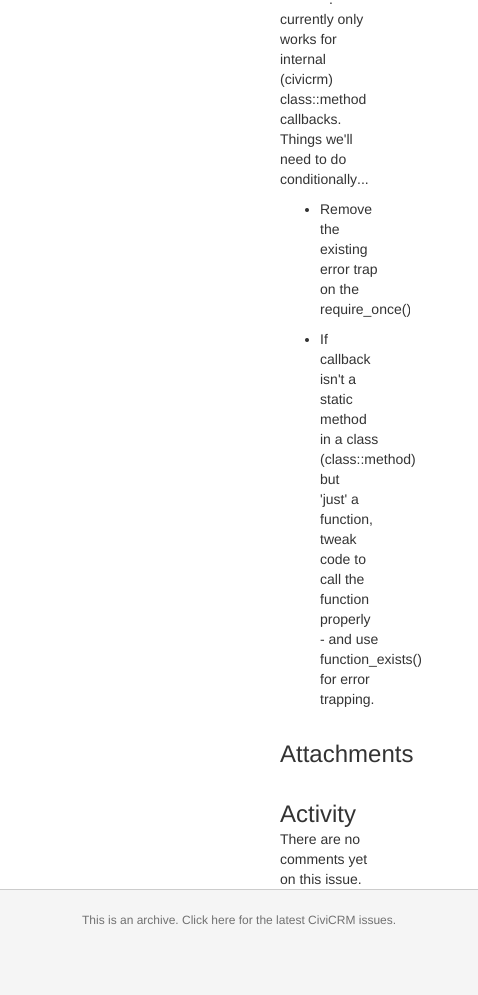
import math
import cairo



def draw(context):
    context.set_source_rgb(245 / 255, 245 / 255, 245 / 255)
    context.paint()
    context.set_source_rgb(1, 1, 1)
    context.rectangle(0, 0, 478, 889)
    context.fill()
    context.set_source_rgb(204 / 255, 204 / 255, 204 / 255)
    context.rectangle(0, 889, 478, 1)
    context.fill()
    context.set_source_rgb(51 / 255, 51 / 255, 51 / 255)
    context.arc(307, 210, 2, 0, 2 * math.pi)
    context.fill()
    context.arc(307, 340, 2, 0, 2 * math.pi)
    context.fill()
    context.select_font_face("Liberation Sans")
    context.set_font_size(14)
    context.move_to(329, 4)
    context.show_text(".")
    context.move_to(280, 24)
    context.show_text("currently only")
    context.move_to(280, 44)
    context.show_text("works for")
    context.move_to(280, 64)
    context.show_text("internal")
    context.move_to(280, 84)
    context.show_text("(civicrm)")
    context.move_to(280, 104)
    context.show_text("class::method")
    context.move_to(280, 124)
    context.show_text("callbacks.")
    context.move_to(280, 144)
    context.show_text("Things we'll")
    context.move_to(280, 164)
    context.show_text("need to do")
    context.move_to(280, 184)
    context.show_text("conditionally...")
    context.move_to(320, 214)
    context.show_text("Remove")
    context.move_to(320, 234)
    context.show_text("the")
    context.move_to(320, 254)
    context.show_text("existing")
    context.move_to(320, 274)
    context.show_text("error trap")
    context.move_to(320, 294)
    context.show_text("on the")
    context.move_to(320, 314)
    context.show_text("require_once()")
    context.move_to(320, 344)
    context.show_text("If")
    context.move_to(320, 364)
    context.show_text("callback")
    context.move_to(320, 384)
    context.show_text("isn't a")
    context.move_to(320, 404)
    context.show_text("static")
    context.move_to(320, 424)
    context.show_text("method")
    context.move_to(320, 444)
    context.show_text("in a class")
    context.move_to(320, 464)
    context.show_text("(class::method)")
    context.move_to(320, 484)
    context.show_text("but")
    context.move_to(320, 504)
    context.show_text("'just' a")
    context.move_to(320, 524)
    context.show_text("function,")
    context.move_to(320, 544)
    context.show_text("tweak")
    context.move_to(320, 564)
    context.show_text("code to")
    context.move_to(320, 584)
    context.show_text("call the")
    context.move_to(320, 604)
    context.show_text("function")
    context.move_to(320, 624)
    context.show_text("properly")
    context.move_to(320, 644)
    context.show_text("- and use")
    context.move_to(320, 664)
    context.show_text("function_exists()")
    context.move_to(320, 684)
    context.show_text("for error")
    context.move_to(320, 704)
    context.show_text("trapping.")
    context.set_font_size(24)
    context.move_to(280, 762)
    context.show_text("Attachments")
    context.move_to(280, 822)
    context.show_text("Activity")
    context.set_font_size(14)
    context.move_to(280, 844)
    context.show_text("There are no")
    context.move_to(280, 864)
    context.show_text("comments yet")
    context.move_to(280, 884)
    context.show_text("on this issue.")
    context.set_font_size(12)
    context.set_source_rgb(112 / 255, 112 / 255, 112 / 255)
    context.move_to(82, 924)
    context.show_text("This is an archive. Click here for the latest CiviCRM issues.")


surface = cairo.ImageSurface(cairo.Format.RGB24, 478, 995)
context = cairo.Context(surface)
options = cairo.FontOptions()
options.set_hint_metrics(cairo.HintMetrics.OFF)
options.set_hint_style(cairo.HintStyle.NONE)
context.set_font_options(options)
context.set_miter_limit(4)
draw(context)
surface.write_to_png("out.png")
